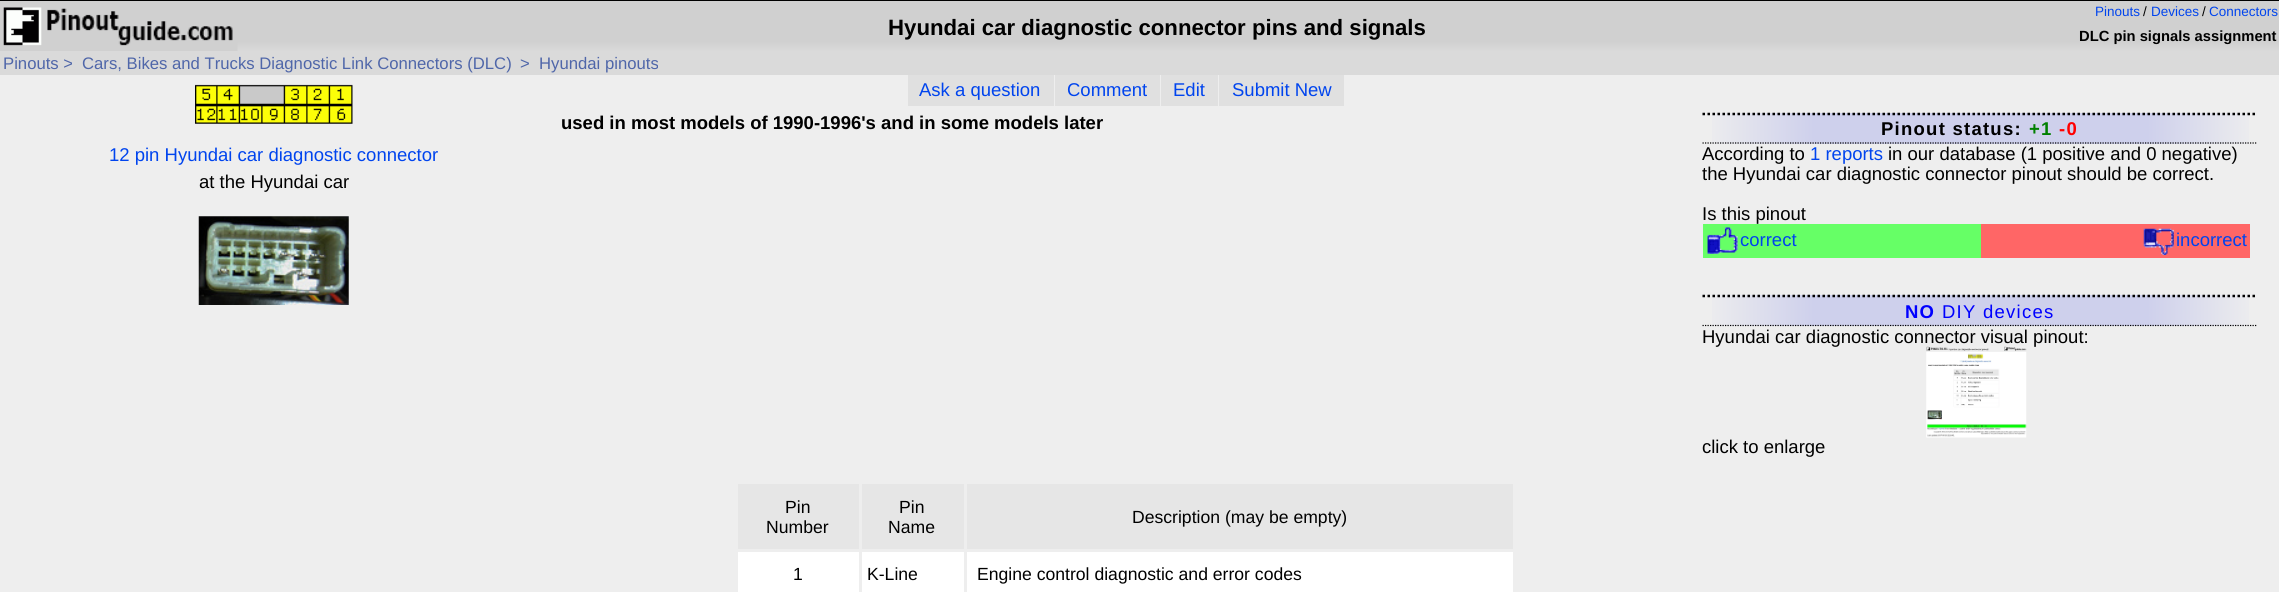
import math
import cairo



def draw_spaced(context, x, y, s, letter, word):
    context.move_to(x, y)
    for ch in s:
        context.show_text(ch)
        context.rel_move_to(letter + word * (ch == ' '), 0)


def draw_image(context, path, x, y, w, h):
    context.save()
    context.set_source_surface(cairo.ImageSurface.create_from_png(path), x, y)
    context.rectangle(x, y, w, h)
    context.fill()
    context.restore()


def draw(context):
    context.set_source_rgb(238 / 255, 238 / 255, 238 / 255)
    context.paint()
    gradient = cairo.LinearGradient(1140, 1.2, 1140, 51)
    gradient.add_color_stop_rgba(0.8, 208 / 255, 208 / 255, 208 / 255, 1)
    gradient.add_color_stop_rgba(1, 218 / 255, 218 / 255, 218 / 255, 1)
    context.set_source(gradient)
    context.rectangle(0, 1, 2279, 50)
    context.fill()
    context.set_source_rgb(0, 0, 0)
    context.rectangle(0, 0, 2279, 1)
    context.fill()
    draw_image(context, "images/1.png", 0, 7, 238, 44)
    context.set_source_rgb(218 / 255, 218 / 255, 218 / 255)
    context.rectangle(0, 51, 2279, 24)
    context.fill()
    draw_image(context, "images/2.png", 195, 84, 158, 40)
    draw_image(context, "images/3.png", 198, 216, 151, 89)
    context.set_source_rgb(224 / 255, 224 / 255, 224 / 255)
    context.rectangle(908, 75, 146, 31)
    context.fill()
    context.rectangle(1055, 75, 105, 31)
    context.fill()
    context.rectangle(1161, 75, 57, 31)
    context.fill()
    context.rectangle(1219, 75, 125, 31)
    context.fill()
    context.set_source_rgb(1, 1, 1)
    context.rectangle(738, 552, 775, 40)
    context.fill()
    context.set_source_rgb(230 / 255, 230 / 255, 230 / 255)
    context.rectangle(738, 484, 121, 65)
    context.fill()
    context.rectangle(862, 484, 102, 65)
    context.fill()
    context.rectangle(967, 484, 546, 65)
    context.fill()
    context.set_source_rgb(238 / 255, 238 / 255, 238 / 255)
    context.rectangle(859, 549, 3, 43)
    context.fill()
    context.rectangle(964, 549, 3, 43)
    context.fill()
    gradient = cairo.LinearGradient(1703, 129, 2258, 129)
    gradient.add_color_stop_rgba(0, 238 / 255, 238 / 255, 238 / 255, 1)
    gradient.add_color_stop_rgba(0.2, 206 / 255, 208 / 255, 236 / 255, 1)
    gradient.add_color_stop_rgba(0.8, 206 / 255, 208 / 255, 236 / 255, 1)
    gradient.add_color_stop_rgba(1, 238 / 255, 238 / 255, 238 / 255, 1)
    context.set_source(gradient)
    context.rectangle(1712, 113, 537, 31)
    context.fill()
    context.new_path()
    context.move_to(1702.5, 114)
    context.line_to(2257.5, 114)
    context.set_source_rgb(0, 0, 0)
    context.set_line_width(2.5)
    context.set_dash([2.5, 2.5])
    context.stroke()
    context.new_path()
    context.move_to(1702.5, 143)
    context.line_to(2257.5, 143)
    context.set_line_width(1.2)
    context.set_dash([1.25, 1.25])
    context.stroke()
    context.set_source_rgb(102 / 255, 1, 102 / 255)
    context.rectangle(1703, 224, 278, 34)
    context.fill()
    draw_image(context, "images/4.png", 1707, 227, 31, 27)
    context.set_source_rgb(1, 102 / 255, 102 / 255)
    context.rectangle(1981, 224, 269, 34)
    context.fill()
    draw_image(context, "images/5.png", 2143, 228, 31, 27)
    gradient = cairo.LinearGradient(1703, 311, 2258, 311)
    gradient.add_color_stop_rgba(0, 238 / 255, 238 / 255, 238 / 255, 1)
    gradient.add_color_stop_rgba(0.2, 206 / 255, 208 / 255, 236 / 255, 1)
    gradient.add_color_stop_rgba(0.8, 206 / 255, 208 / 255, 236 / 255, 1)
    gradient.add_color_stop_rgba(1, 238 / 255, 238 / 255, 238 / 255, 1)
    context.set_source(gradient)
    context.rectangle(1712, 295, 537, 31)
    context.fill()
    context.new_path()
    context.move_to(1702.5, 296)
    context.line_to(2257.5, 296)
    context.set_source_rgb(0, 0, 0)
    context.set_line_width(2.5)
    context.set_dash([2.5, 2.5])
    context.stroke()
    context.new_path()
    context.move_to(1702.5, 325.5)
    context.line_to(2257.5, 325.5)
    context.set_line_width(1.2)
    context.set_dash([1.25, 1.25])
    context.stroke()
    context.select_font_face("Liberation Sans", cairo.FontSlant.NORMAL, cairo.FontWeight.BOLD)
    context.set_font_size(22.2)
    context.move_to(888, 35)
    context.show_text("Hyundai car diagnostic connector pins and signals")
    context.select_font_face("Liberation Sans")
    context.set_font_size(13.5)
    context.set_source_rgb(0, 68 / 255, 238 / 255)
    context.move_to(2095, 16)
    context.show_text("Pinouts")
    context.set_source_rgb(0, 0, 0)
    context.move_to(2143, 16)
    context.show_text("/")
    context.set_source_rgb(0, 68 / 255, 238 / 255)
    context.move_to(2151, 16)
    context.show_text("Devices")
    context.set_source_rgb(0, 0, 0)
    context.move_to(2202, 16)
    context.show_text("/")
    context.set_source_rgb(0, 68 / 255, 238 / 255)
    context.move_to(2209, 16)
    context.show_text("Connectors")
    context.select_font_face("Liberation Sans", cairo.FontSlant.NORMAL, cairo.FontWeight.BOLD)
    context.set_font_size(14.75)
    context.set_source_rgb(0, 0, 0)
    context.move_to(2079, 41)
    context.show_text("DLC pin signals assignment")
    context.select_font_face("Liberation Sans")
    context.set_font_size(16.7)
    context.set_source_rgb(79 / 255, 102 / 255, 169 / 255)
    context.move_to(3, 69)
    context.show_text("Pinouts >")
    context.move_to(82, 69)
    context.show_text("Cars, Bikes and Trucks Diagnostic Link Connectors (DLC)")
    context.move_to(520, 69)
    context.show_text(">")
    context.move_to(539, 69)
    context.show_text("Hyundai pinouts")
    context.set_font_size(18.5)
    context.set_source_rgb(0, 68 / 255, 238 / 255)
    context.move_to(109, 161)
    context.show_text("12 pin Hyundai car diagnostic connector")
    context.set_source_rgb(0, 0, 0)
    context.move_to(199, 188)
    context.show_text("at the Hyundai car")
    context.set_source_rgb(0, 68 / 255, 238 / 255)
    context.move_to(919, 96)
    context.show_text("Ask a question")
    context.move_to(1067, 96)
    context.show_text("Comment")
    context.move_to(1173, 96)
    context.show_text("Edit")
    context.move_to(1232, 96)
    context.show_text("Submit New")
    context.select_font_face("Liberation Sans", cairo.FontSlant.NORMAL, cairo.FontWeight.BOLD)
    context.set_source_rgb(0, 0, 0)
    context.move_to(561, 129)
    context.show_text("used in most models of 1990-1996's and in some models later")
    context.select_font_face("Liberation Sans")
    context.set_font_size(17.6)
    context.move_to(785, 513)
    context.show_text("Pin")
    context.move_to(766, 533)
    context.show_text("Number")
    context.move_to(899, 513)
    context.show_text("Pin")
    context.move_to(888, 533)
    context.show_text("Name")
    context.move_to(1132, 523)
    context.show_text("Description (may be empty)")
    context.move_to(793, 580)
    context.show_text("1")
    context.move_to(867, 580)
    context.show_text("K-Line")
    context.move_to(977, 580)
    context.show_text("Engine control diagnostic and error codes")
    context.select_font_face("Liberation Sans", cairo.FontSlant.NORMAL, cairo.FontWeight.BOLD)
    context.set_font_size(18.5)
    draw_spaced(context, 1881, 135, "Pinout status:", 1.25, 0)
    context.set_source_rgb(0, 128 / 255, 0)
    draw_spaced(context, 2029, 135, "+1", 1.25, 0)
    context.set_source_rgb(1, 0, 0)
    draw_spaced(context, 2059, 135, "-0", 1.25, 0)
    context.select_font_face("Liberation Sans")
    context.set_source_rgb(0, 0, 0)
    context.move_to(1702, 160)
    context.show_text("According to")
    context.set_source_rgb(0, 68 / 255, 238 / 255)
    context.move_to(1810, 160)
    context.show_text("1 reports")
    context.set_source_rgb(0, 0, 0)
    context.move_to(1888, 160)
    context.show_text("in our database (1 positive and 0 negative)")
    context.move_to(1702, 180)
    context.show_text("the Hyundai car diagnostic connector pinout should be correct.")
    context.move_to(1702, 220)
    context.show_text("Is this pinout")
    context.set_source_rgb(0, 68 / 255, 238 / 255)
    context.move_to(1740, 246)
    context.show_text("correct")
    context.move_to(2176, 246)
    context.show_text("incorrect")
    context.select_font_face("Liberation Sans", cairo.FontSlant.NORMAL, cairo.FontWeight.BOLD)
    context.set_source_rgb(0, 0, 1)
    draw_spaced(context, 1905, 318, "NO", 1.25, 0)
    context.select_font_face("Liberation Sans")
    draw_spaced(context, 1942, 318, "DIY devices", 1.25, 0)
    context.set_source_rgb(0, 0, 0)
    context.move_to(1702, 343)
    context.show_text("Hyundai car diagnostic connector visual pinout:")
    draw_image(context, "images/6.png", 1926, 346, 101, 92)
    context.move_to(1702, 453)
    context.show_text("click to enlarge")


surface = cairo.ImageSurface(cairo.Format.RGB24, 2279, 592)
context = cairo.Context(surface)
options = cairo.FontOptions()
options.set_hint_metrics(cairo.HintMetrics.OFF)
options.set_hint_style(cairo.HintStyle.NONE)
context.set_font_options(options)
context.set_miter_limit(4)
draw(context)
surface.write_to_png("out.png")
